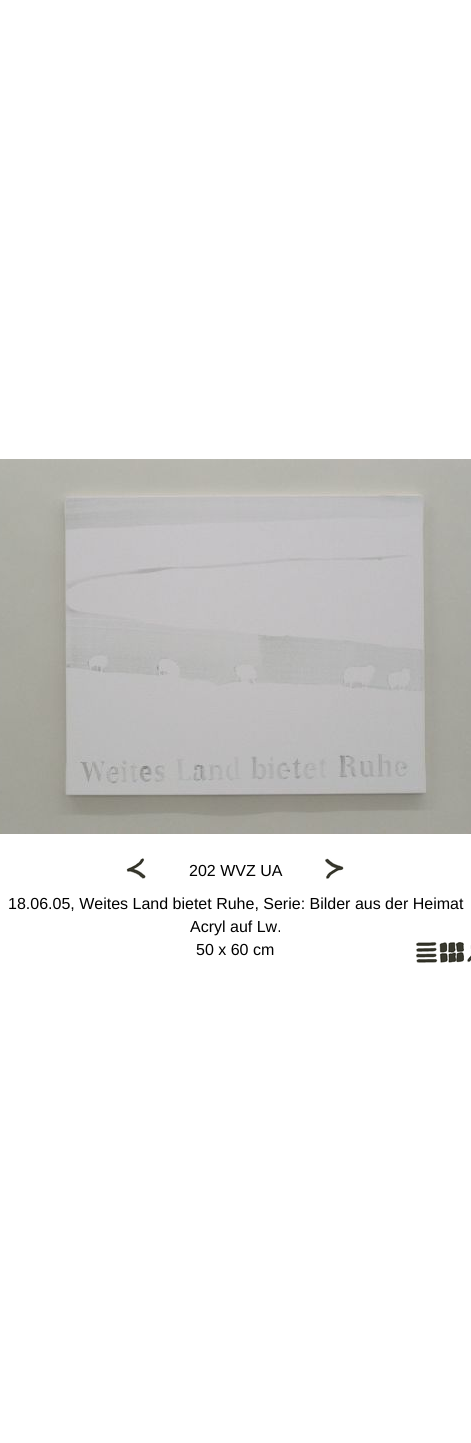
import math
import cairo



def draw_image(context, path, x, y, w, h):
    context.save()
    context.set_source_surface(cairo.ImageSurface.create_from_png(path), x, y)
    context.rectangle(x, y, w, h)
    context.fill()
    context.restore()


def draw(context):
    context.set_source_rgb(1, 1, 1)
    context.paint()
    draw_image(context, "images/1.png", 0, 459, 471, 375)
    draw_image(context, "images/2.png", 126, 858, 20, 21)
    draw_image(context, "images/3.png", 325, 858, 19, 21)
    draw_image(context, "images/4.png", 416, 942, 22, 21)
    draw_image(context, "images/5.png", 439, 942, 25, 21)
    draw_image(context, "images/6.png", 467, 945, 4, 18)
    context.select_font_face("Liberation Sans")
    context.set_font_size(16)
    context.set_source_rgb(0, 0, 0)
    context.move_to(189, 876)
    context.show_text("202 WVZ UA")
    context.move_to(8, 909)
    context.show_text("18.06.05, Weites Land bietet Ruhe, Serie: Bilder aus der Heimat")
    context.move_to(190, 932)
    context.show_text("Acryl auf Lw.")
    context.move_to(196, 955)
    context.show_text("50 x 60 cm")


surface = cairo.ImageSurface(cairo.Format.RGB24, 471, 1443)
context = cairo.Context(surface)
options = cairo.FontOptions()
options.set_hint_metrics(cairo.HintMetrics.OFF)
options.set_hint_style(cairo.HintStyle.NONE)
context.set_font_options(options)
context.set_miter_limit(4)
draw(context)
surface.write_to_png("out.png")
